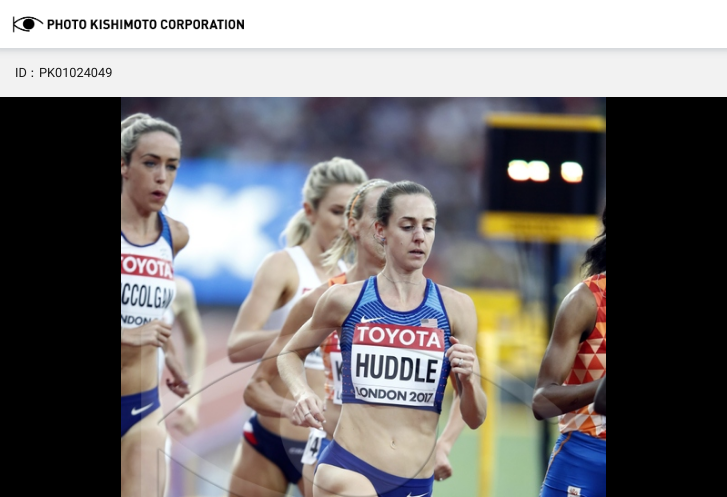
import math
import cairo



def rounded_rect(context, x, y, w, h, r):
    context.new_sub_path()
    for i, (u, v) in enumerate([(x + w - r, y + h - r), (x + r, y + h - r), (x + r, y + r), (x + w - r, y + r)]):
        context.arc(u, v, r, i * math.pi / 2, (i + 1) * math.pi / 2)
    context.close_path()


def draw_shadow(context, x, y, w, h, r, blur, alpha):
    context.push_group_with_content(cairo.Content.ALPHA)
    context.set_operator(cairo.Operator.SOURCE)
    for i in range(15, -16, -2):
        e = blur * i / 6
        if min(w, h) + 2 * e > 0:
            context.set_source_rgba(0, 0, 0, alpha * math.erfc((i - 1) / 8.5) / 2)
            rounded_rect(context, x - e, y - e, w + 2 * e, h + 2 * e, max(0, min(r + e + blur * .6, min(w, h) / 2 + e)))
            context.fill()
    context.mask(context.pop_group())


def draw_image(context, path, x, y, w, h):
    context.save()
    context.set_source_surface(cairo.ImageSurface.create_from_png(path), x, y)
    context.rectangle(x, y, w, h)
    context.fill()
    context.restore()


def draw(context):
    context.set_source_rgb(242 / 255, 242 / 255, 242 / 255)
    context.paint()
    context.set_source_rgb(26 / 255, 44 / 255, 69 / 255)
    draw_shadow(context, -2, -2, 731, 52, 0, 4, 0.2)
    context.set_source_rgb(1, 1, 1)
    context.rectangle(0, 0, 727, 48)
    context.fill()
    draw_image(context, "images/1.png", 12, 16, 232, 17)
    context.set_source_rgb(0, 0, 0)
    context.rectangle(0, 97, 727, 400)
    context.fill()
    draw_image(context, "images/2.png", 121, 97, 485, 400)
    context.select_font_face("Roboto")
    context.set_font_size(12.75)
    context.set_source_rgb(26 / 255, 26 / 255, 26 / 255)
    context.move_to(15, 77)
    context.show_text("ID")
    context.select_font_face("WenQuanYi Zen Hei Medium")
    context.move_to(26, 77)
    context.show_text("：")
    context.select_font_face("Roboto")
    context.move_to(39, 77)
    context.show_text("PK01024049")


surface = cairo.ImageSurface(cairo.Format.RGB24, 727, 497)
context = cairo.Context(surface)
options = cairo.FontOptions()
options.set_hint_metrics(cairo.HintMetrics.OFF)
options.set_hint_style(cairo.HintStyle.NONE)
context.set_font_options(options)
context.set_miter_limit(4)
draw(context)
surface.write_to_png("out.png")
